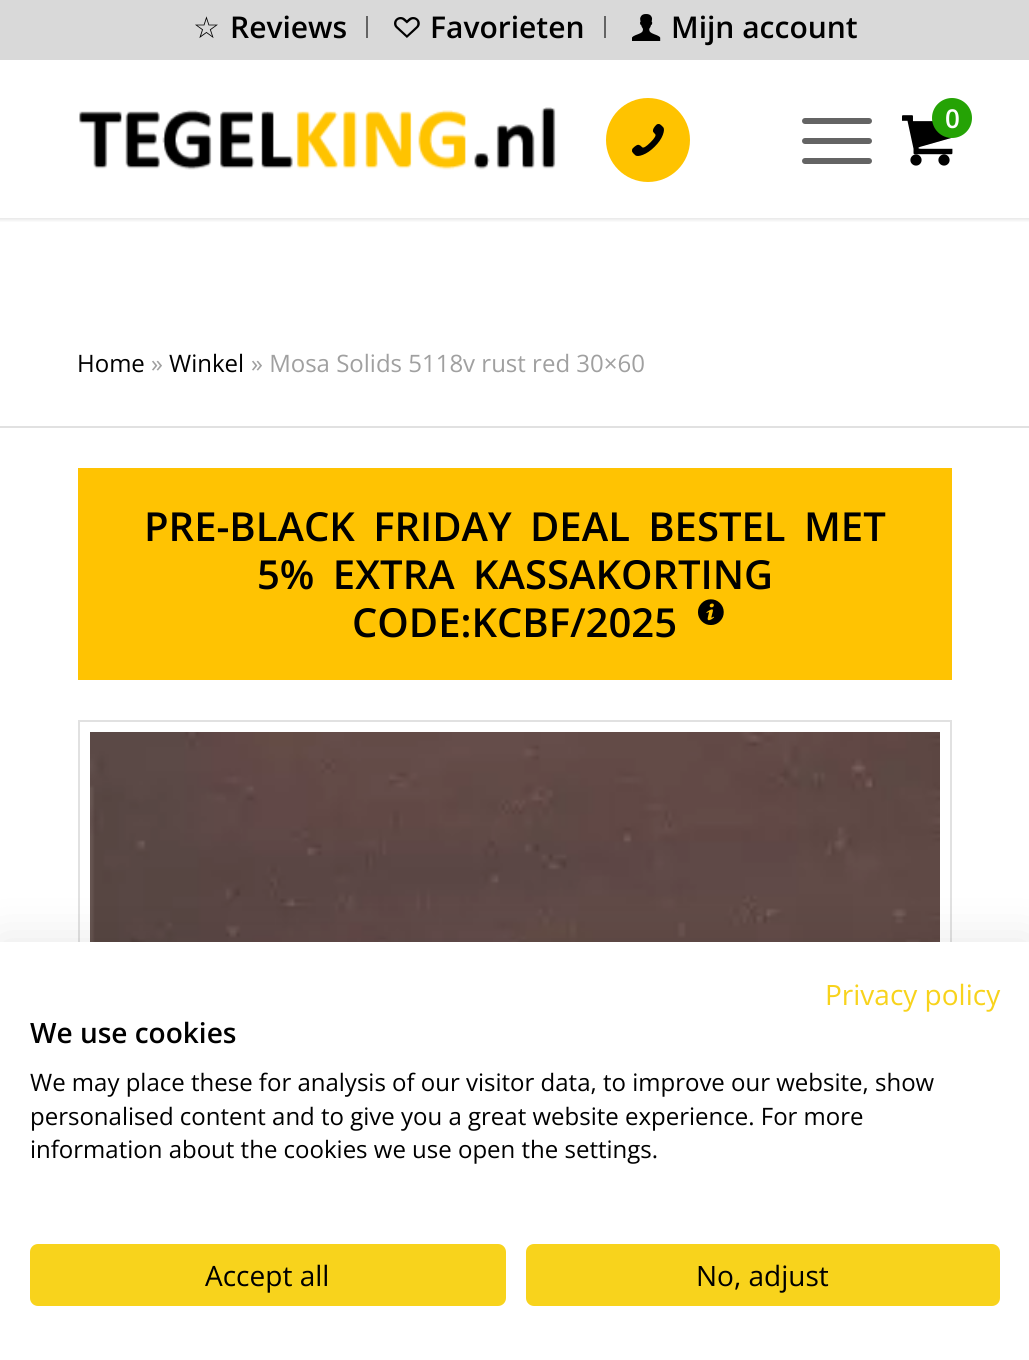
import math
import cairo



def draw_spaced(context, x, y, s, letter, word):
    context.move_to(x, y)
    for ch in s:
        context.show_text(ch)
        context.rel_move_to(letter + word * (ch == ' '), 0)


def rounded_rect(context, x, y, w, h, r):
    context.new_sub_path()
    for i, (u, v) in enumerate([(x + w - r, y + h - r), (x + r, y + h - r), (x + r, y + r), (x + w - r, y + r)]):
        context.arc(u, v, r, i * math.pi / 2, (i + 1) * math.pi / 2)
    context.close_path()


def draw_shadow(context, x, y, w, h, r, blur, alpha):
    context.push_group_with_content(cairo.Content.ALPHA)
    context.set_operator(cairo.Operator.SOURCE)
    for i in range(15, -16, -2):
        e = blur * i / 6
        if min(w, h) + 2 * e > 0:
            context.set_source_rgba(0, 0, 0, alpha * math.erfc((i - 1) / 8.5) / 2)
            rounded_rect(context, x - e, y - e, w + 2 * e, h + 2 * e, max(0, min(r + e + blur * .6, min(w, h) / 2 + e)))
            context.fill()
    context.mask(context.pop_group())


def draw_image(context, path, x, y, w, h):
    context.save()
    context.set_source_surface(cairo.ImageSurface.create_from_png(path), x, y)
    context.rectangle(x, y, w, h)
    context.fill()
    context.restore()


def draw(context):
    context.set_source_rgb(1, 1, 1)
    context.paint()
    context.save()
    context.rectangle(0, 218, 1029, 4)
    context.clip()
    context.set_source_rgb(0, 0, 0)
    draw_shadow(context, -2, -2, 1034, 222, 0, 2, 0.1)
    context.restore()
    context.set_source_rgb(217 / 255, 217 / 255, 217 / 255)
    context.rectangle(0, 0, 1029, 60)
    context.fill()
    context.set_source_rgb(100 / 255, 100 / 255, 100 / 255)
    context.rectangle(366, 16, 2, 22)
    context.fill()
    context.rectangle(604, 16, 2, 22)
    context.fill()
    draw_image(context, "images/1.png", 394, 17, 26, 21)
    draw_image(context, "images/2.png", 632, 14, 29, 27)
    draw_image(context, "images/3.png", 79, 107, 477, 63)
    context.set_source_rgb(1, 195 / 255, 0)
    context.arc(648, 140, 42, 0, 2 * math.pi)
    context.fill()
    draw_image(context, "images/4.png", 632, 124, 32, 32)
    context.set_source_rgb(100 / 255, 100 / 255, 100 / 255)
    rounded_rect(context, 802, 138, 70, 6, 3)
    context.fill()
    rounded_rect(context, 802, 118, 70, 6, 3)
    context.fill()
    rounded_rect(context, 802, 158, 70, 6, 3)
    context.fill()
    draw_image(context, "images/5.png", 902, 115, 51, 51)
    context.set_source_rgb(37 / 255, 163 / 255, 5 / 255)
    context.arc(952, 118, 20, 0, 2 * math.pi)
    context.fill()
    context.set_source_rgb(225 / 255, 225 / 255, 225 / 255)
    context.rectangle(0, 426, 1029, 2)
    context.fill()
    context.set_source_rgb(1, 195 / 255, 2 / 255)
    context.rectangle(78, 468, 874, 212)
    context.fill()
    draw_image(context, "images/6.png", 698, 599, 26, 26)
    context.rectangle(79, 721, 872, 448)
    context.set_source_rgb(225 / 255, 225 / 255, 225 / 255)
    context.stroke()
    draw_image(context, "images/7.png", 90, 732, 850, 210)
    context.set_source_rgb(0, 0, 0)
    draw_shadow(context, 0, 942, 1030, 418, 0, 24, 0.1)
    context.set_source_rgb(1, 1, 1)
    context.rectangle(0, 942, 1029, 418)
    context.fill()
    context.set_source_rgb(248 / 255, 211 / 255, 28 / 255)
    rounded_rect(context, 31, 1245, 474, 60, 7)
    context.fill_preserve()
    context.stroke()
    rounded_rect(context, 527, 1245, 472, 60, 7)
    context.fill_preserve()
    context.stroke()
    context.select_font_face("DejaVu Sans")
    context.set_font_size(30)
    context.set_source_rgb(0, 0, 0)
    context.move_to(193, 38)
    context.show_text("☆")
    context.select_font_face("Open Sans SemiBold")
    context.move_to(230, 38)
    context.show_text("Reviews")
    context.move_to(430, 38)
    context.show_text("Favorieten")
    context.move_to(671, 38)
    context.show_text("Mijn account")
    context.set_font_size(26)
    context.set_source_rgb(1, 1, 1)
    context.move_to(945, 128)
    context.show_text("0")
    context.select_font_face("Open Sans")
    context.set_font_size(24)
    context.set_source_rgb(0, 0, 0)
    context.move_to(77, 372)
    context.show_text("Home")
    context.set_source_rgb(160 / 255, 160 / 255, 160 / 255)
    context.move_to(151, 372)
    context.show_text("»")
    context.set_source_rgb(0, 0, 0)
    context.move_to(169, 372)
    context.show_text("Winkel")
    context.set_source_rgb(160 / 255, 160 / 255, 160 / 255)
    context.move_to(251, 372)
    context.show_text("» Mosa Solids 5118v rust red 30×60")
    context.select_font_face("Open Sans SemiBold")
    context.set_font_size(40)
    context.set_source_rgb(0, 0, 0)
    draw_spaced(context, 144, 541, "PRE-BLACK FRIDAY DEAL BESTEL MET", 0, 8)
    draw_spaced(context, 257, 589, "5% EXTRA KASSAKORTING", 0, 8)
    context.move_to(352, 637)
    context.show_text("CODE:KCBF/2025")
    context.select_font_face("Open Sans")
    context.set_font_size(28)
    context.set_source_rgb(248 / 255, 211 / 255, 28 / 255)
    context.move_to(825, 1005)
    context.show_text("Privacy policy")
    context.select_font_face("Open Sans SemiBold")
    context.set_source_rgb(0, 0, 0)
    context.move_to(30, 1043)
    context.show_text("We use cookies")
    context.select_font_face("Open Sans")
    context.set_font_size(24)
    context.move_to(30, 1091)
    context.show_text("We may place these for analysis of our visitor data, to improve our website, show")
    context.move_to(30, 1125)
    context.show_text("personalised content and to give you a great website experience. For more")
    context.move_to(30, 1158)
    context.show_text("information about the cookies we use open the settings.")
    context.set_font_size(28)
    context.move_to(205, 1286)
    context.show_text("Accept all")
    context.move_to(696, 1286)
    context.show_text("No, adjust")


surface = cairo.ImageSurface(cairo.Format.RGB24, 1029, 1360)
context = cairo.Context(surface)
options = cairo.FontOptions()
options.set_hint_metrics(cairo.HintMetrics.OFF)
options.set_hint_style(cairo.HintStyle.NONE)
context.set_font_options(options)
context.set_miter_limit(4)
draw(context)
surface.write_to_png("out.png")
